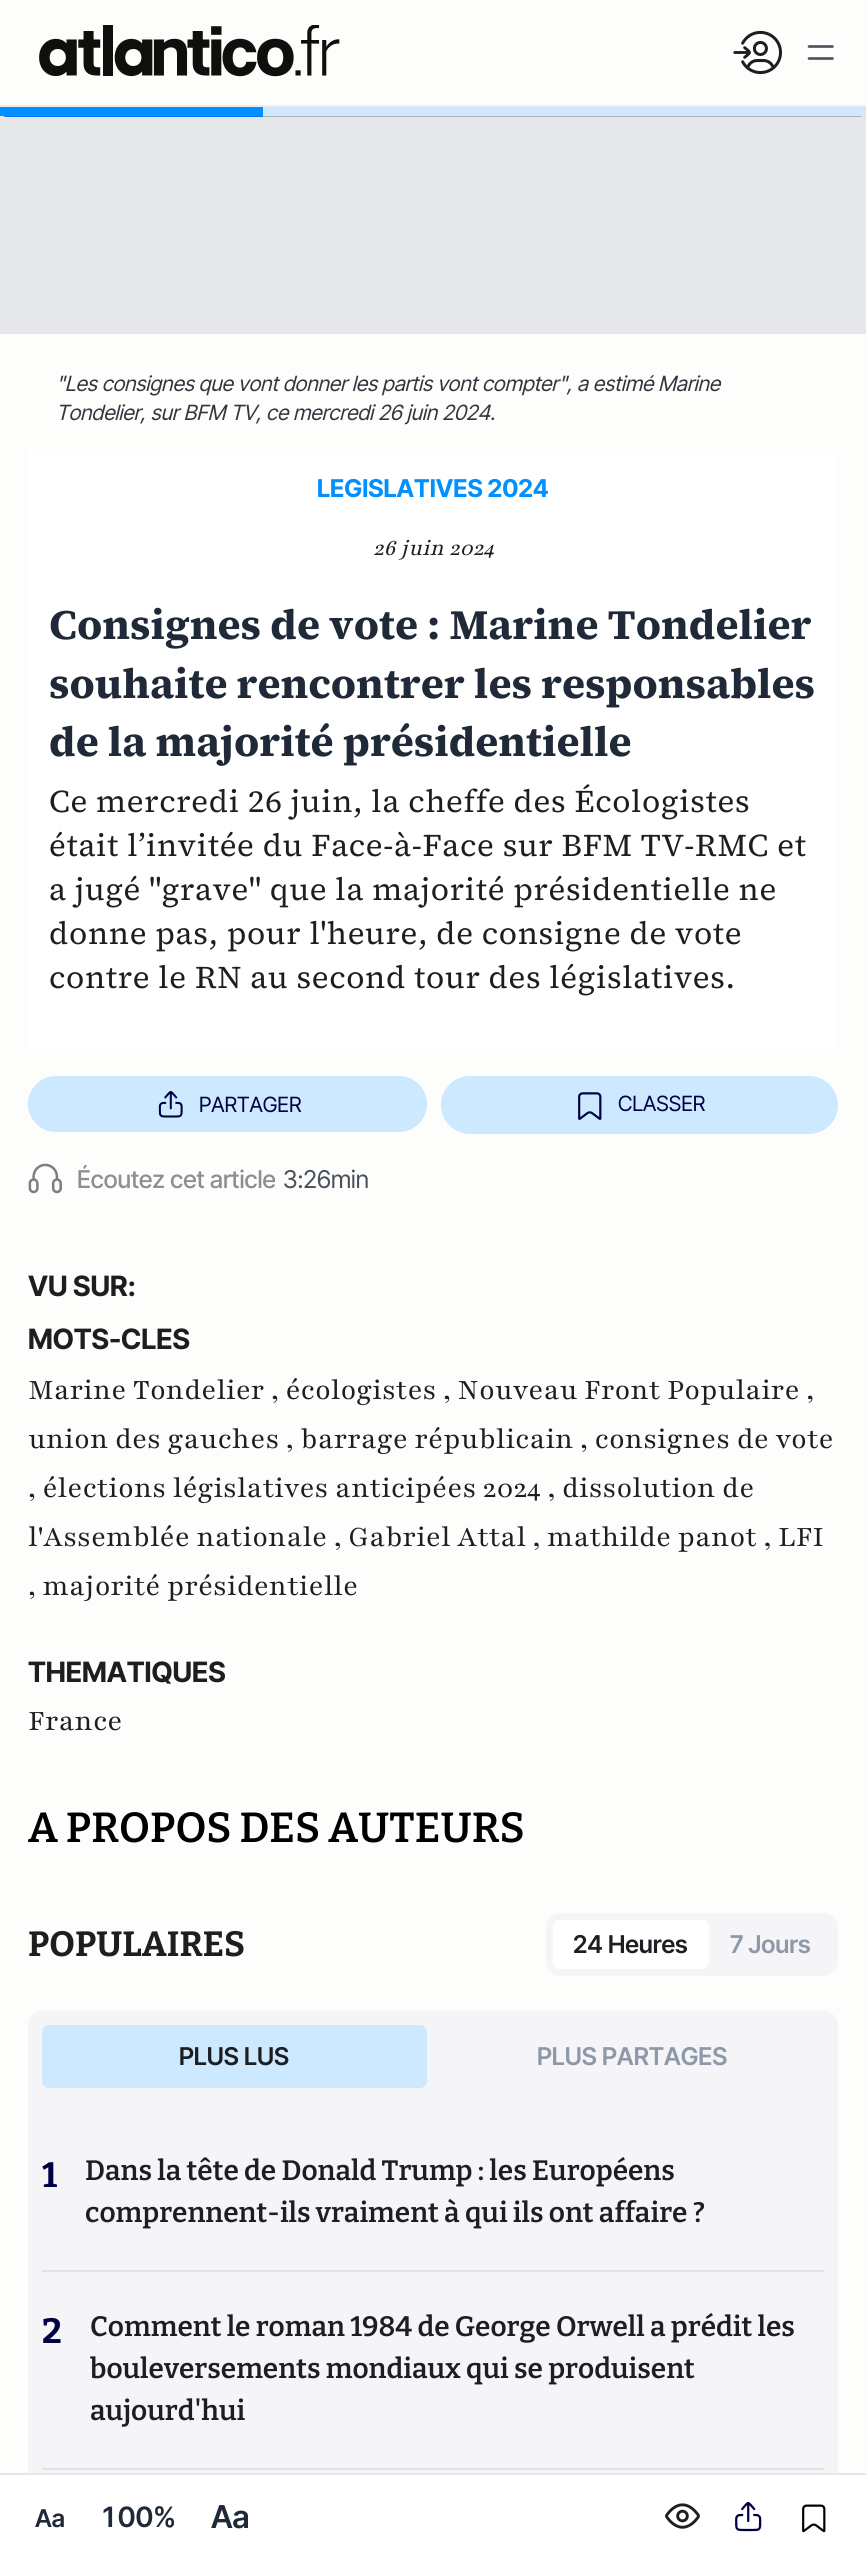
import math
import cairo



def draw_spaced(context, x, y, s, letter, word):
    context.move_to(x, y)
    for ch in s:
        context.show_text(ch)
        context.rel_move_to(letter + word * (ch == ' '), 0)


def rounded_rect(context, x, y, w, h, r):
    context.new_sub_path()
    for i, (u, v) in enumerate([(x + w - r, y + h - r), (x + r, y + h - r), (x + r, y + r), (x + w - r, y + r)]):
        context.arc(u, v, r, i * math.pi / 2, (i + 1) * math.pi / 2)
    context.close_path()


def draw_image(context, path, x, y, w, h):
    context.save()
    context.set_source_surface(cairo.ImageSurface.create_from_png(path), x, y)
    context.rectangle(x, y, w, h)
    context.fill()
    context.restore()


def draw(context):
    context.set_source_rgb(253 / 255, 253 / 255, 252 / 255)
    context.paint()
    context.set_source_rgb(229 / 255, 231 / 255, 235 / 255)
    context.rectangle(0, 116, 866, 218)
    context.fill()
    rounded_rect(context, 1, 104, 864, 12, 6)
    context.set_source_rgb(178 / 255, 178 / 255, 178 / 255)
    context.stroke()
    context.set_source_rgb(0, 117 / 255, 1)
    context.new_path()
    context.move_to(7, 103)
    context.line_to(263, 103)
    context.line_to(263, 117)
    context.line_to(7, 117)
    context.curve_to(3, 117, 0, 114, 0, 110)
    context.curve_to(0, 106, 3, 103, 7, 103)
    context.close_path()
    context.fill()
    context.set_source_rgb(253 / 255, 253 / 255, 252 / 255)
    context.rectangle(2, 103, 862, 2)
    context.fill()
    context.set_source_rgb(235 / 255, 235 / 255, 240 / 255)
    context.rectangle(0, 105, 866, 2)
    context.fill()
    draw_image(context, "images/1.png", 39, 25, 301, 52)
    draw_image(context, "images/2.png", 733, 30, 49, 45)
    context.new_path()
    context.move_to(809, 46.5)
    context.line_to(832.5, 46.5)
    context.move_to(809, 58.5)
    context.line_to(832.5, 58.5)
    context.set_source_rgb(73 / 255, 79 / 255, 90 / 255)
    context.set_line_width(2.6)
    context.set_line_cap(cairo.LineCap.ROUND)
    context.set_line_join(cairo.LineJoin.ROUND)
    context.stroke()
    context.set_source_rgb(204 / 255, 233 / 255, 1)
    context.rectangle(263, 107, 603, 9)
    context.fill()
    context.set_source_rgb(0, 144 / 255, 1)
    context.rectangle(0, 107, 263, 9)
    context.fill()
    context.set_source_rgb(1, 1, 1)
    context.rectangle(28, 450, 810, 598)
    context.fill()
    context.set_source_rgb(204 / 255, 233 / 255, 1)
    rounded_rect(context, 28, 1076, 399, 56, 28)
    context.fill()
    draw_image(context, "images/3.png", 158, 1091, 25, 27)
    rounded_rect(context, 441, 1076, 397, 58, 29)
    context.fill()
    draw_image(context, "images/4.png", 578, 1092, 24, 28)
    draw_image(context, "images/5.png", 28, 1163, 34, 31)
    context.set_source_rgb(245 / 255, 245 / 255, 248 / 255)
    rounded_rect(context, 28, 2011, 810, 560, 14)
    context.fill()
    context.set_source_rgb(1, 1, 1)
    context.rectangle(0, 2475, 866, 82)
    context.fill()
    context.set_source_rgb(229 / 255, 231 / 255, 235 / 255)
    context.rectangle(0, 2473, 866, 2)
    context.fill()
    draw_image(context, "images/6.png", 665, 2503, 35, 26)
    draw_image(context, "images/7.png", 735, 2501, 27, 31)
    draw_image(context, "images/8.png", 802, 2504, 24, 29)
    context.set_source_rgb(245 / 255, 245 / 255, 248 / 255)
    rounded_rect(context, 546, 1913, 292, 63, 14)
    context.fill()
    context.set_source_rgb(1, 1, 1)
    rounded_rect(context, 553, 1920, 156, 49, 7)
    context.fill()
    context.set_source_rgb(204 / 255, 233 / 255, 1)
    rounded_rect(context, 42, 2025, 385, 63, 7)
    context.fill()
    context.set_source_rgb(224 / 255, 226 / 255, 230 / 255)
    context.rectangle(42, 2270, 782, 2)
    context.fill()
    context.rectangle(42, 2468, 782, 2)
    context.fill()
    context.select_font_face("Inter Tight", cairo.FontSlant.ITALIC)
    context.set_font_size(21)
    context.set_source_rgb(50 / 255, 54 / 255, 62 / 255)
    context.move_to(56, 391)
    context.show_text("\"Les consignes que vont donner les partis vont compter\", a estimé Marine")
    context.move_to(56, 420)
    context.show_text("Tondelier, sur BFM TV, ce mercredi 26 juin 2024.")
    context.select_font_face("Inter Tight", cairo.FontSlant.NORMAL, cairo.FontWeight.BOLD)
    context.set_font_size(24.5)
    context.set_source_rgb(0, 144 / 255, 1)
    context.move_to(317, 497)
    context.show_text("LEGISLATIVES 2024")
    context.select_font_face("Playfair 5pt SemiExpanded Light", cairo.FontSlant.ITALIC)
    context.set_source_rgb(28 / 255, 30 / 255, 34 / 255)
    context.move_to(373, 555)
    context.show_text("26 juin 2024")
    context.select_font_face("Source Serif 4", cairo.FontSlant.NORMAL, cairo.FontWeight.BOLD)
    context.set_font_size(42)
    context.set_source_rgb(31 / 255, 41 / 255, 55 / 255)
    context.move_to(49, 639)
    context.show_text("Consignes de vote : Marine Tondelier")
    context.move_to(49, 698)
    context.show_text("souhaite rencontrer les responsables")
    context.move_to(49, 756)
    context.show_text("de la majorité présidentielle")
    context.select_font_face("Source Serif 4")
    context.set_font_size(31.5)
    context.set_source_rgb(28 / 255, 30 / 255, 34 / 255)
    draw_spaced(context, 49, 812, "Ce mercredi 26 juin, la cheffe des Écologistes", 0.65, 0)
    draw_spaced(context, 49, 856, "était l’invitée du Face-à-Face sur BFM TV-RMC et", 0.65, 0)
    draw_spaced(context, 49, 900, "a jugé \"grave\" que la majorité présidentielle ne", 0.65, 0)
    draw_spaced(context, 49, 944, "donne pas, pour l'heure, de consigne de vote", 0.65, 0)
    draw_spaced(context, 49, 988, "contre le RN au second tour des législatives.", 0.65, 0)
    context.select_font_face("Inter Tight")
    context.set_font_size(21)
    context.set_source_rgb(0, 0, 68 / 255)
    context.move_to(199, 1112)
    context.show_text("PARTAGER")
    context.move_to(618, 1111)
    context.show_text("CLASSER")
    context.select_font_face("Inter Tight Medium")
    context.set_font_size(24.5)
    context.set_source_rgb(141 / 255, 142 / 255, 143 / 255)
    context.move_to(77, 1188)
    context.show_text("Écoutez cet article")
    context.select_font_face("Inter Tight")
    context.set_source_rgb(73 / 255, 79 / 255, 90 / 255)
    context.move_to(283, 1188)
    context.show_text("3:26min")
    context.select_font_face("Inter Tight SemiBold")
    context.set_source_rgb(31 / 255, 41 / 255, 55 / 255)
    context.move_to(35, 2527)
    context.show_text("Aa")
    context.select_font_face("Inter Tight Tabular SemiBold")
    context.set_font_size(28)
    context.move_to(100, 2527)
    context.show_text("100%")
    context.select_font_face("Inter Tight SemiBold")
    context.set_font_size(31.5)
    context.move_to(211, 2528)
    context.show_text("Aa")
    context.select_font_face("Inter Tight", cairo.FontSlant.NORMAL, cairo.FontWeight.BOLD)
    context.set_font_size(28)
    context.set_source_rgb(28 / 255, 30 / 255, 34 / 255)
    context.move_to(28, 1296)
    context.show_text("VU SUR:")
    context.move_to(28, 1349)
    context.show_text("MOTS-CLES")
    context.select_font_face("Playfair 5pt SemiExpanded Light")
    context.set_font_size(31.5)
    context.move_to(28, 1399)
    context.show_text("Marine Tondelier , écologistes , Nouveau Front Populaire ,")
    context.move_to(28, 1448)
    context.show_text("union des gauches , barrage républicain , consignes de vote")
    context.move_to(28, 1497)
    context.show_text(", élections législatives anticipées 2024 , dissolution de")
    context.move_to(28, 1546)
    context.show_text("l'Assemblée nationale , Gabriel Attal , mathilde panot , LFI")
    context.move_to(28, 1595)
    context.show_text(", majorité présidentielle")
    context.select_font_face("Inter Tight", cairo.FontSlant.NORMAL, cairo.FontWeight.BOLD)
    context.set_font_size(28)
    context.move_to(28, 1682)
    context.show_text("THEMATIQUES")
    context.select_font_face("Playfair 5pt SemiExpanded Light")
    context.set_font_size(31.5)
    context.move_to(28, 1730)
    context.show_text("France")
    context.select_font_face("Bitter SemiBold")
    context.set_font_size(42)
    context.set_source_rgb(0, 0, 0)
    context.move_to(28, 1842)
    context.show_text("A PROPOS DES AUTEURS")
    context.select_font_face("Bitter", cairo.FontSlant.NORMAL, cairo.FontWeight.BOLD)
    context.set_font_size(35)
    context.set_source_rgb(28 / 255, 30 / 255, 34 / 255)
    context.move_to(28, 1956)
    context.show_text("POPULAIRES")
    context.select_font_face("Inter Tight SemiBold")
    context.set_font_size(24.5)
    context.move_to(573, 1953)
    context.show_text("24 Heures")
    context.set_source_rgb(142 / 255, 152 / 255, 168 / 255)
    context.move_to(730, 1953)
    context.show_text("7 Jours")
    context.set_source_rgb(28 / 255, 30 / 255, 34 / 255)
    context.move_to(179, 2065)
    context.show_text("PLUS LUS")
    context.set_source_rgb(142 / 255, 152 / 255, 168 / 255)
    context.move_to(537, 2065)
    context.show_text("PLUS PARTAGES")
    context.select_font_face("Bitter", cairo.FontSlant.NORMAL, cairo.FontWeight.BOLD)
    context.set_font_size(35)
    context.set_source_rgb(0, 0, 68 / 255)
    context.move_to(42, 2187)
    context.show_text("1")
    context.select_font_face("Bitter SemiBold")
    context.set_font_size(28)
    context.set_source_rgb(28 / 255, 30 / 255, 34 / 255)
    context.move_to(85, 2180)
    context.show_text("Dans la tête de Donald Trump : les Européens")
    context.move_to(85, 2222)
    context.show_text("comprennent-ils vraiment à qui ils ont affaire ?")
    context.select_font_face("Bitter", cairo.FontSlant.NORMAL, cairo.FontWeight.BOLD)
    context.set_font_size(35)
    context.set_source_rgb(0, 0, 68 / 255)
    context.move_to(42, 2343)
    context.show_text("2")
    context.select_font_face("Bitter SemiBold")
    context.set_font_size(28)
    context.set_source_rgb(28 / 255, 30 / 255, 34 / 255)
    context.move_to(90, 2336)
    context.show_text("Comment le roman 1984 de George Orwell a prédit les")
    context.move_to(90, 2378)
    context.show_text("bouleversements mondiaux qui se produisent")
    context.move_to(90, 2420)
    context.show_text("aujourd'hui")


surface = cairo.ImageSurface(cairo.Format.RGB24, 866, 2557)
context = cairo.Context(surface)
options = cairo.FontOptions()
options.set_hint_metrics(cairo.HintMetrics.OFF)
options.set_hint_style(cairo.HintStyle.NONE)
context.set_font_options(options)
context.set_miter_limit(4)
draw(context)
surface.write_to_png("out.png")
